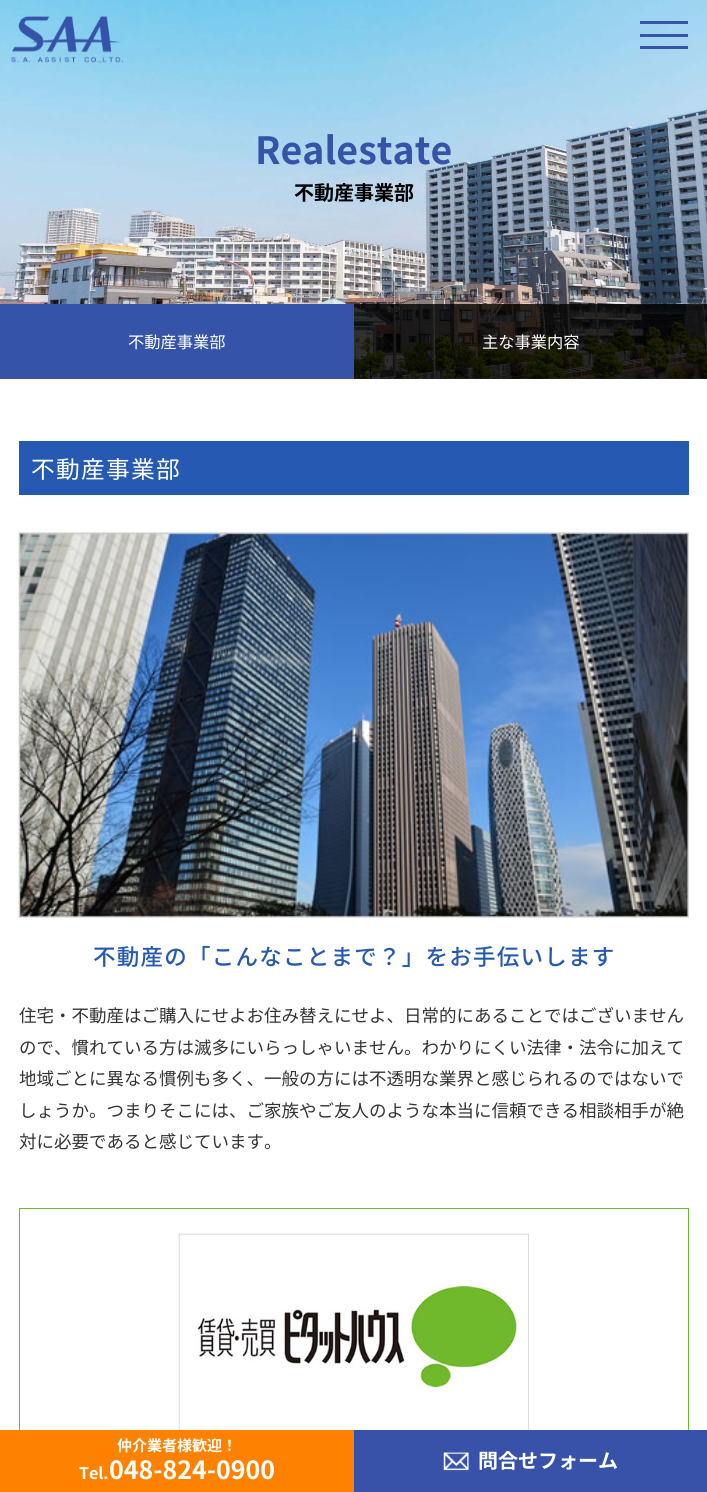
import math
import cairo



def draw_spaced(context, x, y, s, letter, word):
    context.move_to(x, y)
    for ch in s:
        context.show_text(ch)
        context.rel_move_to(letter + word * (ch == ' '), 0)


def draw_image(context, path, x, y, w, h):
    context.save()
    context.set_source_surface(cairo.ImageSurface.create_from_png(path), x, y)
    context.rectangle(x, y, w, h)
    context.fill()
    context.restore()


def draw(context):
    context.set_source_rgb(1, 1, 1)
    context.paint()
    draw_image(context, "images/2.png", 0, 0, 707, 379)
    draw_image(context, "images/1.png", 11, 16, 112, 47)
    context.set_source_rgb(53 / 255, 83 / 255, 169 / 255)
    context.rectangle(640, 21, 48, 3)
    context.fill()
    context.rectangle(640, 34, 48, 3)
    context.fill()
    context.rectangle(640, 46, 48, 3)
    context.fill()
    context.rectangle(0, 304, 354, 75)
    context.fill()
    context.set_source_rgba(0, 0, 0, 0.8)
    context.rectangle(354, 304, 353, 75)
    context.fill()
    context.set_source_rgb(38 / 255, 89 / 255, 178 / 255)
    context.rectangle(19, 441, 670, 54)
    context.fill()
    draw_image(context, "images/3.png", 18, 532, 671, 386)
    context.rectangle(19.5, 1208.5, 669, 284)
    context.set_source_rgb(110 / 255, 184 / 255, 45 / 255)
    context.set_line_width(1)
    context.stroke()
    draw_image(context, "images/4.png", 178, 1233, 351, 197)
    context.set_source_rgb(254 / 255, 129 / 255, 0)
    context.rectangle(0, 1430, 354, 62)
    context.fill()
    context.set_source_rgb(56 / 255, 82 / 255, 170 / 255)
    context.rectangle(354, 1430, 353, 62)
    context.fill()
    draw_image(context, "images/5.png", 443, 1452, 26, 19)
    context.select_font_face("Noto Sans CJK JP", cairo.FontSlant.NORMAL, cairo.FontWeight.BOLD)
    context.set_font_size(37.5)
    context.set_source_rgb(53 / 255, 83 / 255, 169 / 255)
    context.move_to(255, 164)
    context.show_text("Realestate")
    context.set_font_size(20)
    context.set_source_rgb(0, 0, 0)
    context.move_to(294, 200)
    context.show_text("不動産事業部")
    context.select_font_face("Noto Sans CJK JP")
    context.set_font_size(16.25)
    context.set_source_rgb(1, 1, 1)
    context.move_to(128, 348)
    context.show_text("不動産事業部")
    context.move_to(482, 348)
    context.show_text("主な事業内容")
    context.set_font_size(23.75)
    draw_spaced(context, 31, 478, "不動産事業部", 1.25, 0)
    context.select_font_face("Noto Sans CJK JP Medium")
    context.set_font_size(22.5)
    context.set_source_rgb(38 / 255, 89 / 255, 178 / 255)
    draw_spaced(context, 93, 965, "不動産の「こんなことまで？」をお手伝いします", 1.25, 0)
    context.select_font_face("Noto Sans CJK JP")
    context.set_font_size(17.5)
    context.set_source_rgb(51 / 255, 51 / 255, 51 / 255)
    context.move_to(19, 1022)
    context.show_text("住宅・不動産はご購入にせよお住み替えにせよ、日常的にあることではございません")
    context.move_to(19, 1054)
    context.show_text("ので、慣れている方は滅多にいらっしゃいません。わかりにくい法律・法令に加えて")
    context.move_to(19, 1085)
    context.show_text("地域ごとに異なる慣例も多く、一般の方には不透明な業界と感じられるのではないで")
    context.move_to(19, 1117)
    context.show_text("しょうか。つまりそこには、ご家族やご友人のような本当に信頼できる相談相手が絶")
    context.move_to(19, 1148)
    context.show_text("対に必要であると感じています。")
    context.select_font_face("Noto Sans CJK JP", cairo.FontSlant.NORMAL, cairo.FontWeight.BOLD)
    context.set_font_size(15)
    context.set_source_rgb(1, 1, 1)
    context.move_to(117, 1451)
    context.show_text("仲介業者様歓迎！")
    context.set_font_size(16)
    context.move_to(79, 1479)
    context.show_text("Tel.")
    context.set_font_size(25)
    context.move_to(109, 1479)
    context.show_text("048-824-0900")
    context.set_font_size(20)
    context.move_to(478, 1468)
    context.show_text("問合せフォーム")


surface = cairo.ImageSurface(cairo.Format.RGB24, 707, 1492)
context = cairo.Context(surface)
options = cairo.FontOptions()
options.set_hint_metrics(cairo.HintMetrics.OFF)
options.set_hint_style(cairo.HintStyle.NONE)
context.set_font_options(options)
context.set_miter_limit(4)
draw(context)
surface.write_to_png("out.png")
